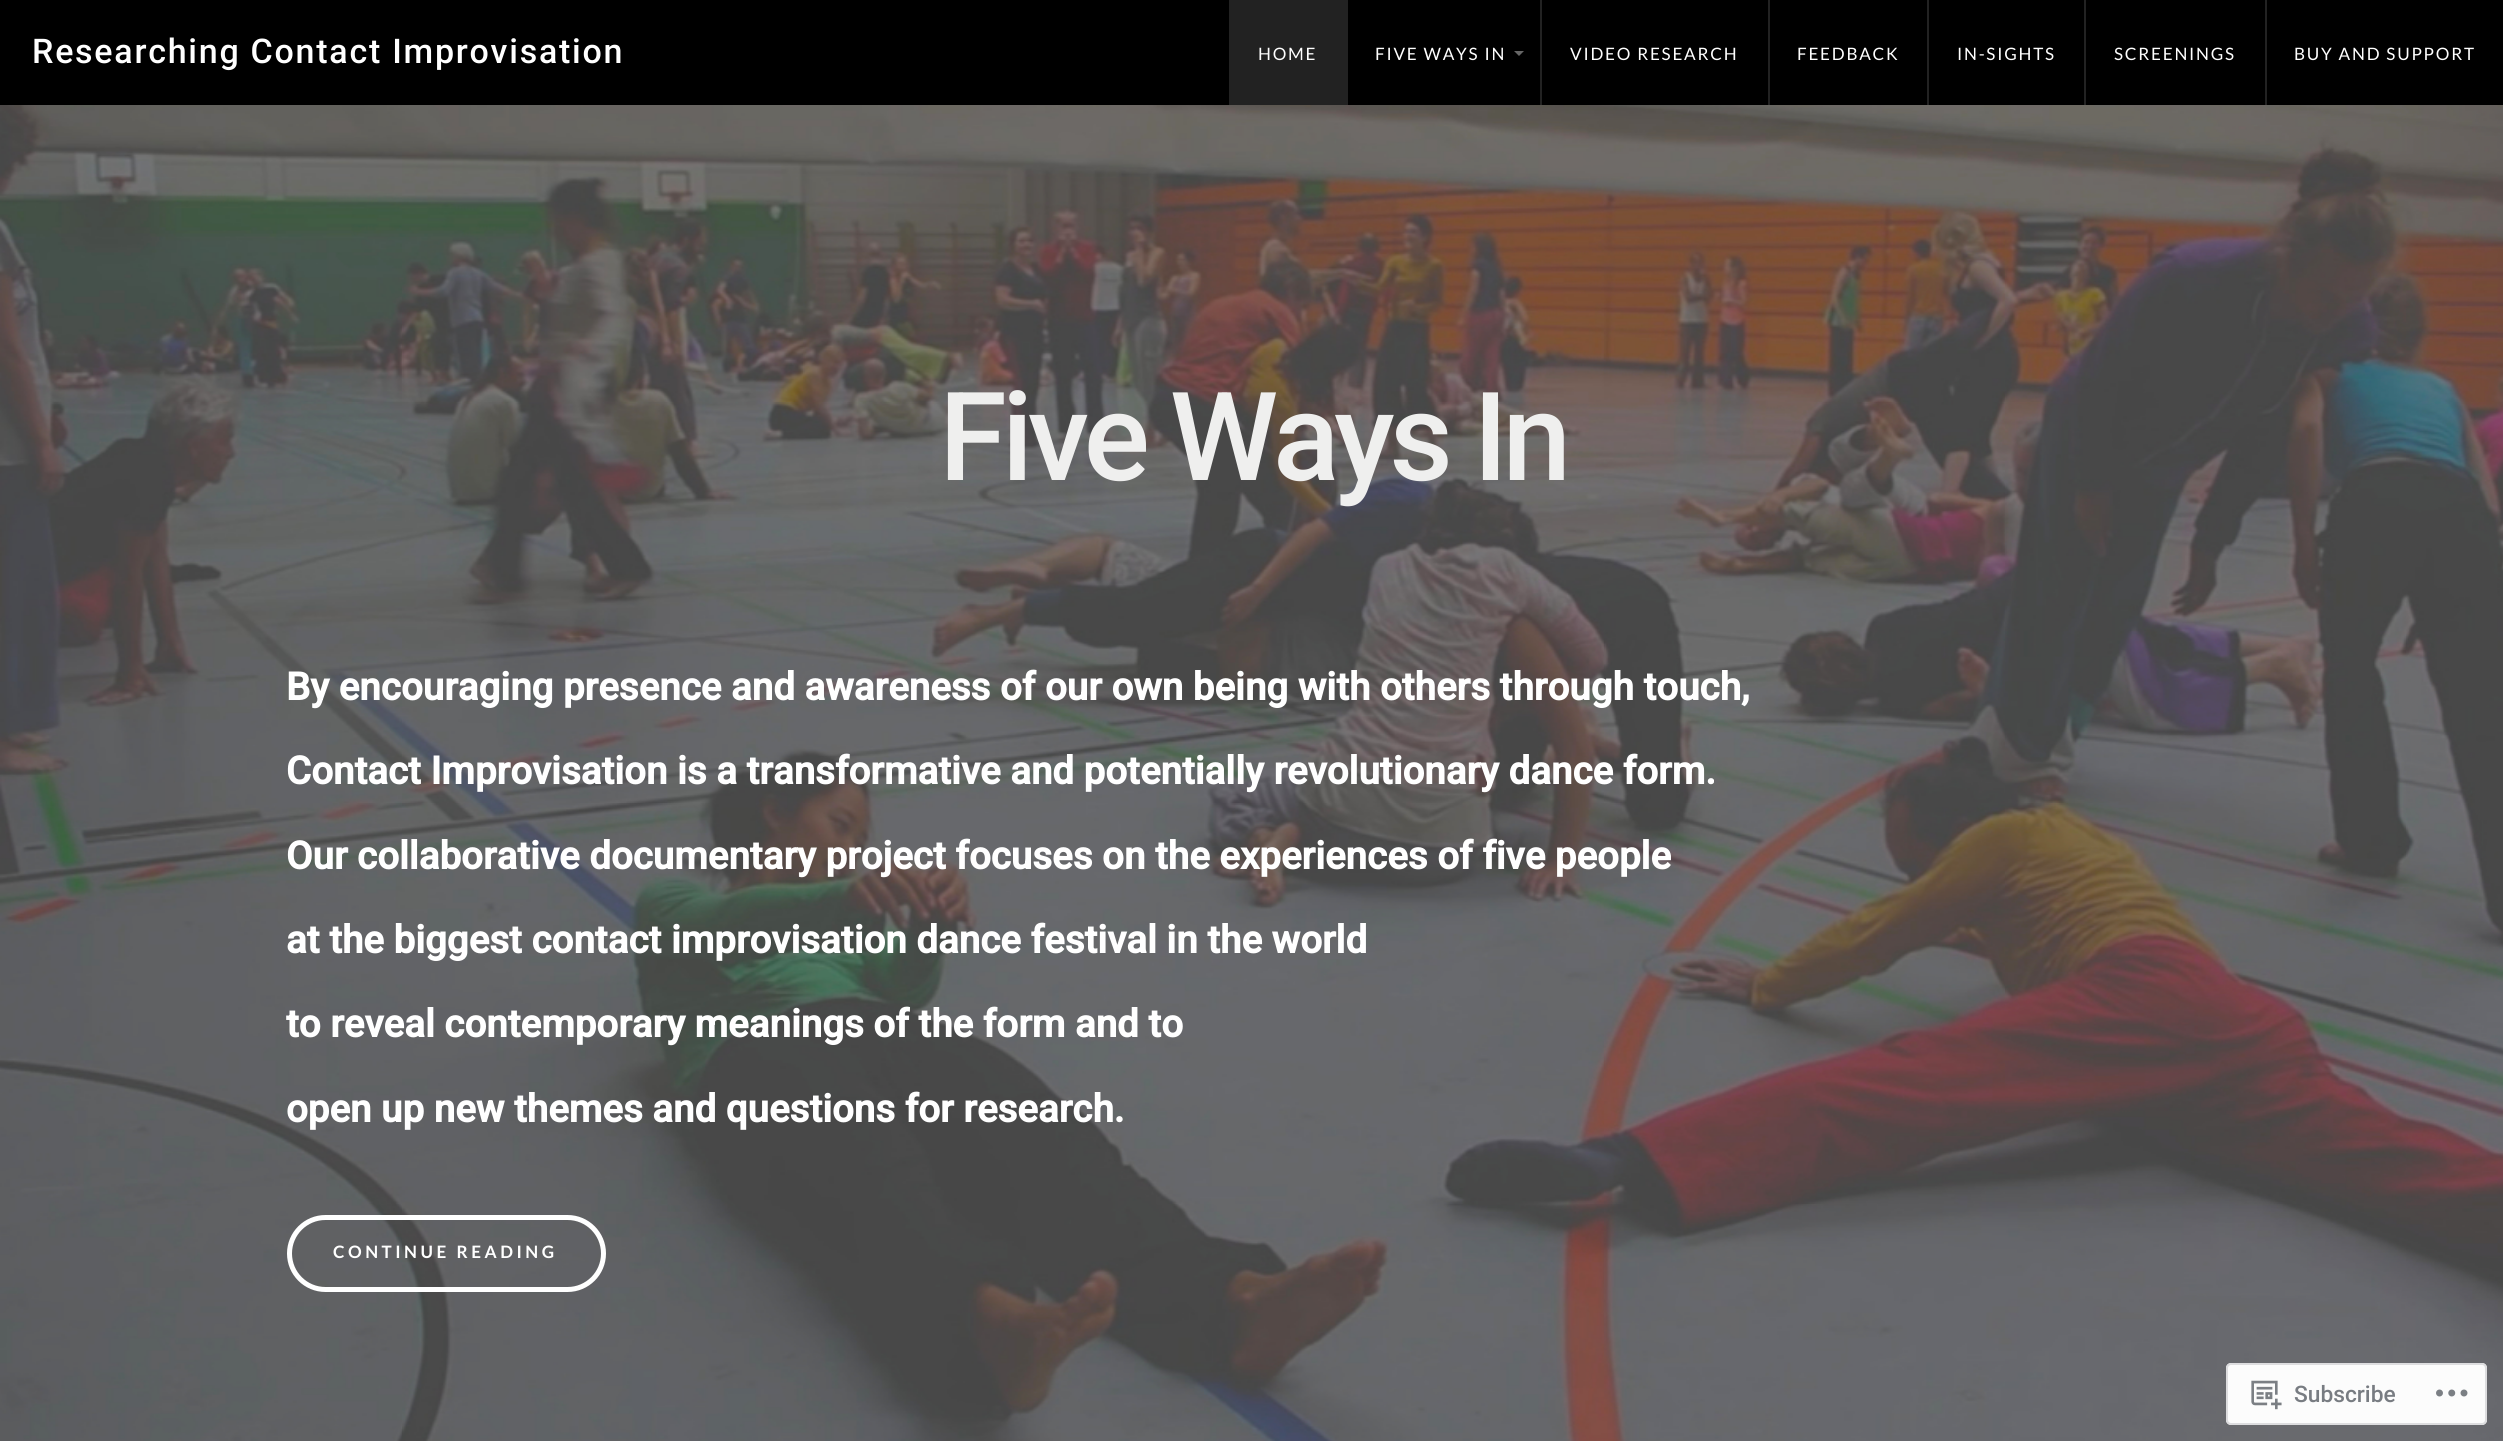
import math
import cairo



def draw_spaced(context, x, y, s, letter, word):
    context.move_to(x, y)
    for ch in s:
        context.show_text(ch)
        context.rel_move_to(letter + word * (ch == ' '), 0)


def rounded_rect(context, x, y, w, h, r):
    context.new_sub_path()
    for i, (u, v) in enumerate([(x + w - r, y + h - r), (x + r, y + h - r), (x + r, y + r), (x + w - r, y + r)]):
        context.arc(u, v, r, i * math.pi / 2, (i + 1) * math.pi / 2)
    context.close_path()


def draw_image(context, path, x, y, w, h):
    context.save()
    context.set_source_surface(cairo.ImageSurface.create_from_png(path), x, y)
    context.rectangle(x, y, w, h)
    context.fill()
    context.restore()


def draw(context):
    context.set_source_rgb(1, 1, 1)
    context.paint()
    context.set_source_rgb(0, 0, 0)
    context.rectangle(0, 0, 2503, 105)
    context.fill()
    context.set_source_rgb(34 / 255, 34 / 255, 34 / 255)
    context.rectangle(1229, 0, 119, 105)
    context.fill()
    context.set_source_rgb(102 / 255, 102 / 255, 102 / 255)
    context.new_path()
    context.move_to(1514, 51)
    context.line_to(1524, 51)
    context.line_to(1519, 56)
    context.close_path()
    context.fill()
    context.set_source_rgb(34 / 255, 34 / 255, 34 / 255)
    context.rectangle(1540, 0, 2, 105)
    context.fill()
    context.rectangle(1768, 0, 2, 105)
    context.fill()
    context.rectangle(1927, 0, 2, 105)
    context.fill()
    context.rectangle(2084, 0, 2, 105)
    context.fill()
    context.rectangle(2265, 0, 2, 105)
    context.fill()
    draw_image(context, "images/1.png", 0, 105, 2503, 1336)
    rounded_rect(context, 289.5, 1217.5, 314, 72, 36)
    context.set_source_rgb(1, 1, 1)
    context.set_line_width(5)
    context.stroke()
    context.set_source_rgba(1, 1, 1, 0.98)
    rounded_rect(context, 2226, 1363, 261, 62, 5)
    context.fill()
    rounded_rect(context, 2227, 1364, 259, 60, 4)
    context.set_source_rgba(220 / 255, 220 / 255, 222 / 255, 0.98)
    context.set_line_width(2)
    context.stroke()
    draw_image(context, "images/2.png", 2251, 1380, 31, 30)
    draw_image(context, "images/3.png", 2436, 1389, 32, 8)
    context.select_font_face("Roboto Medium")
    context.set_font_size(34)
    context.set_source_rgb(1, 1, 1)
    draw_spaced(context, 32, 63, "Researching Contact Improvisation", 1.75, 0)
    context.select_font_face("Lato")
    context.set_font_size(17.1)
    draw_spaced(context, 1258, 60, "HOME", 1.75, 0)
    draw_spaced(context, 1375, 60, "FIVE WAYS IN", 1.75, 0)
    draw_spaced(context, 1570, 60, "VIDEO RESEARCH", 1.75, 0)
    draw_spaced(context, 1797, 60, "FEEDBACK", 1.75, 0)
    draw_spaced(context, 1957, 60, "IN-SIGHTS", 1.75, 0)
    draw_spaced(context, 2114, 60, "SCREENINGS", 1.75, 0)
    draw_spaced(context, 2294, 60, "BUY AND SUPPORT", 1.75, 0)
    context.select_font_face("Roboto Medium")
    context.set_font_size(123.25)
    context.set_source_rgb(239 / 255, 239 / 255, 238 / 255)
    draw_spaced(context, 939, 480, "Five Ways In", -5.25, 0)
    context.select_font_face("Roboto", cairo.FontSlant.NORMAL, cairo.FontWeight.BOLD)
    context.set_font_size(38.5)
    context.set_source_rgb(1, 1, 1)
    context.move_to(286, 700)
    context.show_text("By encouraging presence and awareness of our own being with others through touch,")
    context.move_to(286, 784)
    context.show_text("Contact Improvisation is a transformative and potentially revolutionary dance form.")
    context.move_to(286, 869)
    context.show_text("Our collaborative documentary project focuses on the experiences of five people")
    context.move_to(286, 953)
    context.show_text("at the biggest contact improvisation dance festival in the world")
    context.move_to(286, 1037)
    context.show_text("to reveal contemporary meanings of the form and to")
    context.move_to(286, 1122)
    context.show_text("open up new themes and questions for research.")
    context.select_font_face("Lato", cairo.FontSlant.NORMAL, cairo.FontWeight.BOLD)
    context.set_font_size(17.1)
    draw_spaced(context, 333, 1258, "CONTINUE READING", 3.5, 0)
    context.select_font_face("Roboto Medium")
    context.set_font_size(22.75)
    context.set_source_rgb(120 / 255, 124 / 255, 130 / 255)
    context.move_to(2294, 1402)
    context.show_text("Subscribe")


surface = cairo.ImageSurface(cairo.Format.RGB24, 2503, 1441)
context = cairo.Context(surface)
options = cairo.FontOptions()
options.set_hint_metrics(cairo.HintMetrics.OFF)
options.set_hint_style(cairo.HintStyle.NONE)
context.set_font_options(options)
context.set_miter_limit(4)
draw(context)
surface.write_to_png("out.png")
